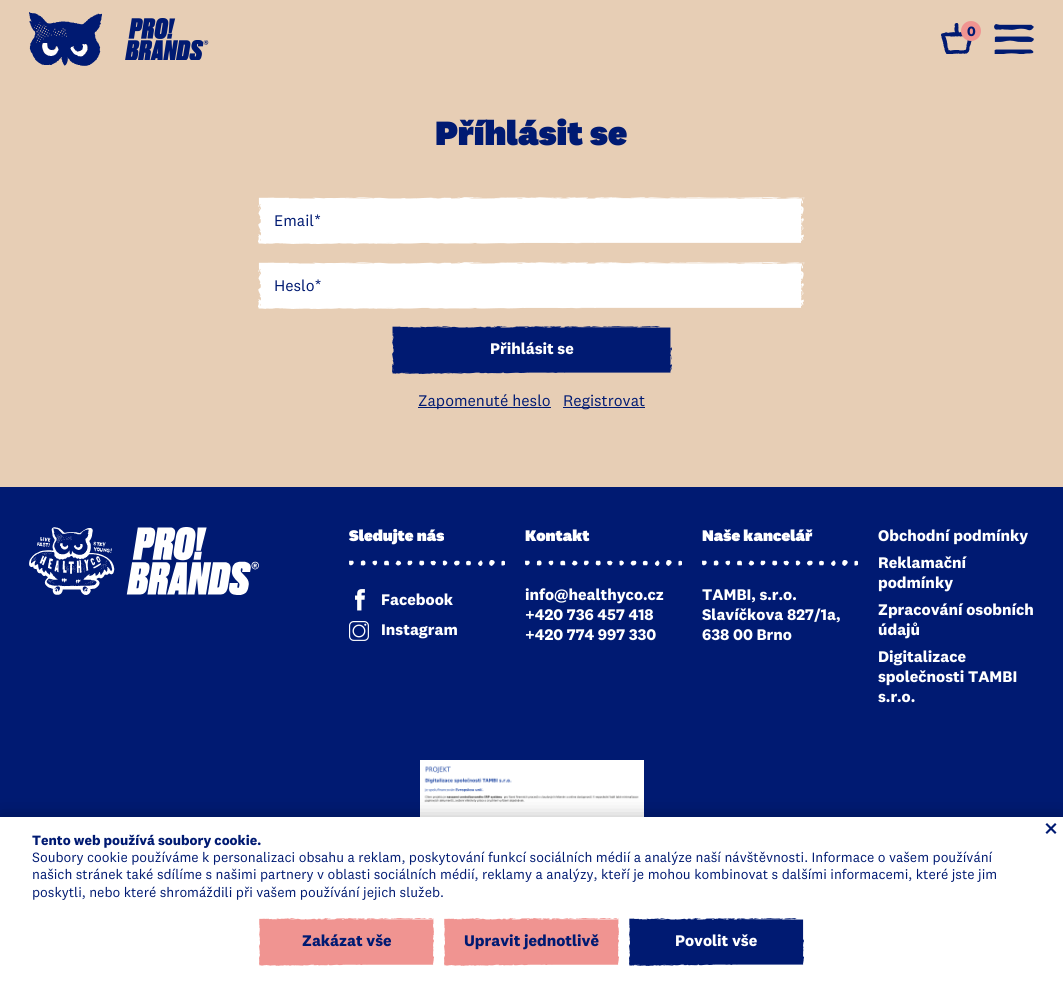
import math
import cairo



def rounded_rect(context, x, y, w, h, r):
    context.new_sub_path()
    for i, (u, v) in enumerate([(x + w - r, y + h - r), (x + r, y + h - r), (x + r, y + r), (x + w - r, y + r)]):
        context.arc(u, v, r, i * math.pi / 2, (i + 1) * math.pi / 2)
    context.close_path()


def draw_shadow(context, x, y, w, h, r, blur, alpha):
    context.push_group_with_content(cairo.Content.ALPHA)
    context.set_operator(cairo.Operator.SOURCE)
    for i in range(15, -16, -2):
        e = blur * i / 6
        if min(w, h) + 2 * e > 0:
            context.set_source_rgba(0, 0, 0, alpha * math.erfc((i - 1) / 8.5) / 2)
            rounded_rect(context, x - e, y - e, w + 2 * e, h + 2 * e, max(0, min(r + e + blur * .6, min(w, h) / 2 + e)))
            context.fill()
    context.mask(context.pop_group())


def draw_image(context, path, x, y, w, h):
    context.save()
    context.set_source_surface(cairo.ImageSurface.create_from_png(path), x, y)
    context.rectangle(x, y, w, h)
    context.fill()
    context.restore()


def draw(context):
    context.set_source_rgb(231 / 255, 206 / 255, 181 / 255)
    context.paint()
    draw_image(context, "images/1.png", 29, 12, 73, 54)
    draw_image(context, "images/2.png", 125, 18, 84, 42)
    draw_image(context, "images/3.png", 941, 23, 31, 31)
    context.set_source_rgb(240 / 255, 148 / 255, 145 / 255)
    context.arc(971, 31, 10, 0, 2 * math.pi)
    context.fill()
    draw_image(context, "images/4.png", 994, 24, 40, 30)
    draw_image(context, "images/5.png", 258, 197, 547, 47)
    draw_image(context, "images/5.png", 258, 262, 547, 47)
    draw_image(context, "images/6.png", 392, 326, 280, 48)
    context.set_source_rgb(0, 26 / 255, 114 / 255)
    context.rectangle(418, 407, 133, 1)
    context.fill()
    context.rectangle(563, 407, 82, 1)
    context.fill()
    context.rectangle(0, 487, 1063, 330)
    context.fill()
    draw_image(context, "images/7.png", 29, 527, 230, 68)
    draw_image(context, "images/8.png", 349, 560, 156, 6)
    draw_image(context, "images/9.png", 355, 589, 10, 22)
    draw_image(context, "images/10.png", 349, 621, 20, 20)
    draw_image(context, "images/11.png", 525, 560, 157, 6)
    draw_image(context, "images/12.png", 702, 560, 156, 6)
    draw_image(context, "images/13.png", 420, 760, 224, 57)
    context.set_source_rgb(0, 0, 0)
    draw_shadow(context, 0, 817, 1063, 165, 0, 10, 0.27)
    context.set_source_rgb(1, 1, 1)
    context.rectangle(0, 817, 1063, 165)
    context.fill()
    context.set_source_rgb(0, 26 / 255, 114 / 255)
    context.new_path()
    context.move_to(1045.5, 832.5)
    context.line_to(1055, 823)
    context.line_to(1056.5, 824.5)
    context.line_to(1047, 834)
    context.close_path()
    context.fill()
    context.new_path()
    context.move_to(1047, 823)
    context.line_to(1056.5, 832.5)
    context.line_to(1055, 834)
    context.line_to(1045.5, 824.5)
    context.close_path()
    context.fill()
    draw_image(context, "images/14.png", 259, 918, 175, 48)
    draw_image(context, "images/14.png", 444, 918, 175, 48)
    draw_image(context, "images/15.png", 629, 918, 175, 48)
    context.select_font_face("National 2", cairo.FontSlant.NORMAL, cairo.FontWeight.BOLD)
    context.set_font_size(14)
    context.move_to(967, 36)
    context.show_text("0")
    context.select_font_face("National 2 Black")
    context.set_font_size(35)
    context.move_to(435, 145)
    context.show_text("Příhlásit se")
    context.select_font_face("National 2")
    context.set_font_size(16)
    context.move_to(274, 226)
    context.show_text("Email*")
    context.move_to(274, 291)
    context.show_text("Heslo*")
    context.select_font_face("National 2", cairo.FontSlant.NORMAL, cairo.FontWeight.BOLD)
    context.set_source_rgb(1, 1, 1)
    context.move_to(490, 354)
    context.show_text("Přihlásit se")
    context.select_font_face("National 2")
    context.set_source_rgb(0, 26 / 255, 114 / 255)
    context.move_to(418, 406)
    context.show_text("Zapomenuté heslo")
    context.move_to(563, 406)
    context.show_text("Registrovat")
    context.select_font_face("National 2 Black")
    context.set_source_rgb(1, 1, 1)
    context.move_to(349, 541)
    context.show_text("Sledujte nás")
    context.select_font_face("National 2", cairo.FontSlant.NORMAL, cairo.FontWeight.BOLD)
    context.move_to(381, 605)
    context.show_text("Facebook")
    context.move_to(381, 635)
    context.show_text("Instagram")
    context.select_font_face("National 2 Black")
    context.move_to(525, 541)
    context.show_text("Kontakt")
    context.select_font_face("National 2", cairo.FontSlant.NORMAL, cairo.FontWeight.BOLD)
    context.move_to(525, 600)
    context.show_text("info@healthyco.cz")
    context.move_to(525, 620)
    context.show_text("+420 736 457 418")
    context.move_to(525, 640)
    context.show_text("+420 774 997 330")
    context.select_font_face("National 2 Black")
    context.move_to(702, 541)
    context.show_text("Naše kancelář")
    context.select_font_face("National 2", cairo.FontSlant.NORMAL, cairo.FontWeight.BOLD)
    context.move_to(702, 600)
    context.show_text("TAMBI, s.r.o.")
    context.move_to(702, 620)
    context.show_text("Slavíčkova 827/1a,")
    context.move_to(702, 640)
    context.show_text("638 00 Brno")
    context.move_to(878, 541)
    context.show_text("Obchodní podmínky")
    context.move_to(878, 568)
    context.show_text("Reklamační")
    context.move_to(878, 588)
    context.show_text("podmínky")
    context.move_to(878, 615)
    context.show_text("Zpracování osobních")
    context.move_to(878, 635)
    context.show_text("údajů")
    context.move_to(878, 662)
    context.show_text("Digitalizace")
    context.move_to(878, 682)
    context.show_text("společnosti TAMBI")
    context.move_to(878, 702)
    context.show_text("s.r.o.")
    context.set_font_size(14)
    context.set_source_rgb(0, 26 / 255, 114 / 255)
    context.move_to(32, 845)
    context.show_text("Tento web používá soubory cookie.")
    context.select_font_face("National 2")
    context.move_to(32, 862)
    context.show_text("Soubory cookie používáme k personalizaci obsahu a reklam, poskytování funkcí sociálních médií a analýze naší návštěvnosti. Informace o vašem používání")
    context.move_to(32, 879)
    context.show_text("našich stránek také sdílíme s našimi partnery v oblasti sociálních médií, reklamy a analýzy, kteří je mohou kombinovat s dalšími informacemi, které jste jim")
    context.move_to(32, 897)
    context.show_text("poskytli, nebo které shromáždili při vašem používání jejich služeb.")
    context.select_font_face("National 2", cairo.FontSlant.NORMAL, cairo.FontWeight.BOLD)
    context.set_font_size(16)
    context.move_to(302, 946)
    context.show_text("Zakázat vše")
    context.move_to(464, 946)
    context.show_text("Upravit jednotlivě")
    context.set_source_rgb(1, 1, 1)
    context.move_to(675, 946)
    context.show_text("Povolit vše")


surface = cairo.ImageSurface(cairo.Format.RGB24, 1063, 982)
context = cairo.Context(surface)
options = cairo.FontOptions()
options.set_hint_metrics(cairo.HintMetrics.OFF)
options.set_hint_style(cairo.HintStyle.NONE)
context.set_font_options(options)
context.set_miter_limit(4)
draw(context)
surface.write_to_png("out.png")
